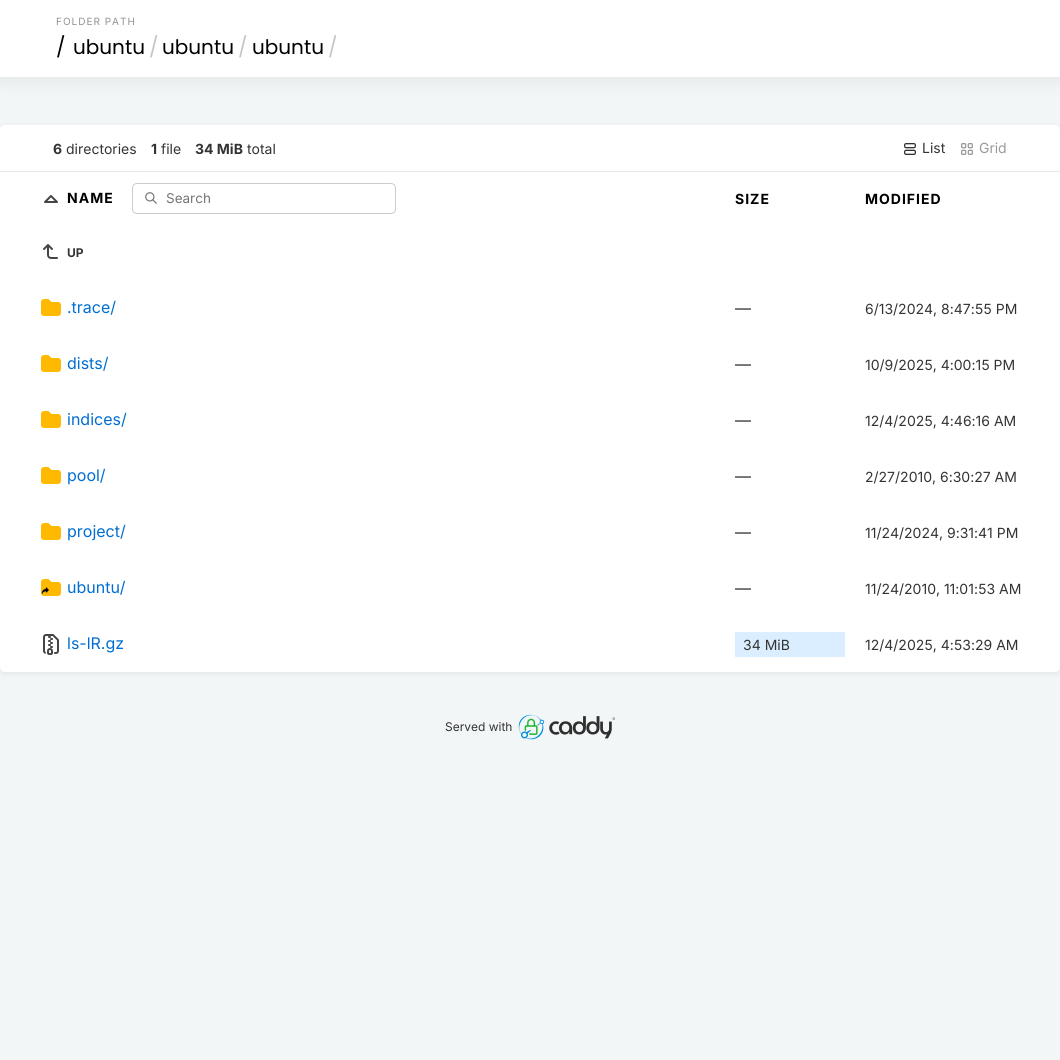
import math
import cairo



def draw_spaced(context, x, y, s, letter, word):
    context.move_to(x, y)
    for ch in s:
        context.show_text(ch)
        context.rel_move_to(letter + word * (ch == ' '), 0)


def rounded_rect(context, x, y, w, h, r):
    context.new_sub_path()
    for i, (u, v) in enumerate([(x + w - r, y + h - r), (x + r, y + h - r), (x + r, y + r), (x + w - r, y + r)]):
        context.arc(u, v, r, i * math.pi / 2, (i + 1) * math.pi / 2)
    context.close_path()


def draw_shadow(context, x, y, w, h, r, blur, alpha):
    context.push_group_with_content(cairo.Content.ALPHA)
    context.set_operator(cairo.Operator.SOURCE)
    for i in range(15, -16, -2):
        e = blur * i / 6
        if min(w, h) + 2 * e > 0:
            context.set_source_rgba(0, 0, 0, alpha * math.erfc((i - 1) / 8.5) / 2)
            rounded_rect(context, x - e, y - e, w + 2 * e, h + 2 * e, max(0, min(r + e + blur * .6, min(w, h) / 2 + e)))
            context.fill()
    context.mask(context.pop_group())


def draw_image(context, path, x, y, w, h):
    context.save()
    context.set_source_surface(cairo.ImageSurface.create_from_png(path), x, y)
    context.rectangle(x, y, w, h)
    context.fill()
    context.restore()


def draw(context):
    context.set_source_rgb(243 / 255, 246 / 255, 247 / 255)
    context.paint()
    context.set_source_rgb(0, 0, 0)
    draw_shadow(context, 0, 0, 1060, 77, 0, 10, 0.1)
    context.set_source_rgb(1, 1, 1)
    context.rectangle(0, 0, 1060, 77)
    context.fill()
    context.set_source_rgb(0, 0, 0)
    draw_shadow(context, -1, 126, 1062, 549, 6, 2.5, 0.05)
    context.set_source_rgb(1, 1, 1)
    rounded_rect(context, 0, 125, 1060, 547, 5)
    context.fill()
    context.set_source_rgb(229 / 255, 233 / 255, 234 / 255)
    context.rectangle(0, 171, 1060, 1)
    context.fill()
    draw_image(context, "images/1.png", 904, 143, 12, 12)
    draw_image(context, "images/2.png", 961, 143, 12, 12)
    context.new_path()
    context.move_to(57, 202)
    context.line_to(51, 196)
    context.line_to(45, 202)
    context.line_to(57, 202)
    context.set_source_rgb(69 / 255, 69 / 255, 69 / 255)
    context.set_line_cap(cairo.LineCap.ROUND)
    context.set_line_join(cairo.LineJoin.ROUND)
    context.stroke()
    draw_image(context, "images/3.png", 145, 192, 12, 12)
    rounded_rect(context, 132.5, 183.5, 263, 30, 4.5)
    context.set_source_rgb(204 / 255, 204 / 255, 204 / 255)
    context.set_line_width(1)
    context.set_line_cap(cairo.LineCap.BUTT)
    context.set_line_join(cairo.LineJoin.MITER)
    context.stroke()
    draw_image(context, "images/4.png", 43, 244, 15, 15)
    draw_image(context, "images/5.png", 41, 299, 20, 17)
    draw_image(context, "images/5.png", 41, 355, 20, 17)
    draw_image(context, "images/5.png", 41, 411, 20, 17)
    draw_image(context, "images/5.png", 41, 467, 20, 17)
    draw_image(context, "images/5.png", 41, 523, 20, 17)
    draw_image(context, "images/6.png", 41, 579, 20, 17)
    draw_image(context, "images/7.png", 43, 634, 16, 21)
    context.set_source_rgb(219 / 255, 238 / 255, 1)
    context.rectangle(735, 632, 110, 25)
    context.fill()
    draw_image(context, "images/8.png", 518, 714, 97, 26)
    context.select_font_face("Inter")
    context.set_font_size(10)
    context.set_source_rgb(147 / 255, 147 / 255, 147 / 255)
    draw_spaced(context, 56, 25, "FOLDER PATH", 1, 0)
    context.select_font_face("Poppins")
    context.set_font_size(20)
    context.set_source_rgb(0, 0, 0)
    context.move_to(56, 54)
    context.show_text("/")
    context.move_to(73, 54)
    context.show_text("ubuntu")
    context.set_source_rgb(197 / 255, 197 / 255, 197 / 255)
    context.move_to(149, 54)
    context.show_text("/")
    context.set_source_rgb(0, 0, 0)
    context.move_to(162, 54)
    context.show_text("ubuntu")
    context.set_source_rgb(197 / 255, 197 / 255, 197 / 255)
    context.move_to(238, 54)
    context.show_text("/")
    context.set_source_rgb(0, 0, 0)
    context.move_to(252, 54)
    context.show_text("ubuntu")
    context.set_source_rgb(197 / 255, 197 / 255, 197 / 255)
    context.move_to(328, 54)
    context.show_text("/")
    context.select_font_face("Inter", cairo.FontSlant.NORMAL, cairo.FontWeight.BOLD)
    context.set_font_size(14)
    context.set_source_rgb(51 / 255, 51 / 255, 51 / 255)
    context.move_to(53, 154)
    context.show_text("6")
    context.select_font_face("Inter")
    context.move_to(66, 154)
    context.show_text("directories")
    context.select_font_face("Inter", cairo.FontSlant.NORMAL, cairo.FontWeight.BOLD)
    context.move_to(151, 154)
    context.show_text("1")
    context.select_font_face("Inter")
    context.move_to(161, 154)
    context.show_text("file")
    context.select_font_face("Inter", cairo.FontSlant.NORMAL, cairo.FontWeight.BOLD)
    context.move_to(195, 154)
    context.show_text("34 MiB")
    context.select_font_face("Inter")
    context.move_to(247, 154)
    context.show_text("total")
    context.move_to(922, 153)
    context.show_text("List")
    context.set_source_rgb(154 / 255, 154 / 255, 154 / 255)
    context.move_to(979, 153)
    context.show_text("Grid")
    context.select_font_face("Inter", cairo.FontSlant.NORMAL, cairo.FontWeight.BOLD)
    context.set_source_rgb(0, 0, 0)
    draw_spaced(context, 67, 203, "NAME", 1, 0)
    context.select_font_face("Inter")
    context.set_font_size(13.5)
    context.set_source_rgb(117 / 255, 117 / 255, 117 / 255)
    context.move_to(166, 203)
    context.show_text("Search")
    context.select_font_face("Inter", cairo.FontSlant.NORMAL, cairo.FontWeight.BOLD)
    context.set_font_size(14)
    context.set_source_rgb(0, 0, 0)
    draw_spaced(context, 735, 204, "SIZE", 1, 0)
    draw_spaced(context, 865, 204, "MODIFIED", 1, 0)
    context.set_font_size(12)
    context.set_source_rgb(51 / 255, 51 / 255, 51 / 255)
    context.move_to(67, 257)
    context.show_text("UP")
    context.select_font_face("Inter")
    context.set_font_size(16)
    context.set_source_rgb(0, 110 / 255, 211 / 255)
    context.move_to(67, 313)
    context.show_text(".trace/")
    context.set_source_rgb(51 / 255, 51 / 255, 51 / 255)
    context.move_to(735, 314)
    context.show_text("—")
    context.set_font_size(14)
    context.move_to(865, 314)
    context.show_text("6/13/2024, 8:47:55 PM")
    context.set_font_size(16)
    context.set_source_rgb(0, 110 / 255, 211 / 255)
    context.move_to(67, 369)
    context.show_text("dists/")
    context.set_source_rgb(51 / 255, 51 / 255, 51 / 255)
    context.move_to(735, 370)
    context.show_text("—")
    context.set_font_size(14)
    context.move_to(865, 370)
    context.show_text("10/9/2025, 4:00:15 PM")
    context.set_font_size(16)
    context.set_source_rgb(0, 110 / 255, 211 / 255)
    context.move_to(67, 425)
    context.show_text("indices/")
    context.set_source_rgb(51 / 255, 51 / 255, 51 / 255)
    context.move_to(735, 426)
    context.show_text("—")
    context.set_font_size(14)
    context.move_to(865, 426)
    context.show_text("12/4/2025, 4:46:16 AM")
    context.set_font_size(16)
    context.set_source_rgb(0, 110 / 255, 211 / 255)
    context.move_to(67, 481)
    context.show_text("pool/")
    context.set_source_rgb(51 / 255, 51 / 255, 51 / 255)
    context.move_to(735, 482)
    context.show_text("—")
    context.set_font_size(14)
    context.move_to(865, 482)
    context.show_text("2/27/2010, 6:30:27 AM")
    context.set_font_size(16)
    context.set_source_rgb(0, 110 / 255, 211 / 255)
    context.move_to(67, 537)
    context.show_text("project/")
    context.set_source_rgb(51 / 255, 51 / 255, 51 / 255)
    context.move_to(735, 538)
    context.show_text("—")
    context.set_font_size(14)
    context.move_to(865, 538)
    context.show_text("11/24/2024, 9:31:41 PM")
    context.set_font_size(16)
    context.set_source_rgb(0, 110 / 255, 211 / 255)
    context.move_to(67, 593)
    context.show_text("ubuntu/")
    context.set_source_rgb(51 / 255, 51 / 255, 51 / 255)
    context.move_to(735, 594)
    context.show_text("—")
    context.set_font_size(14)
    context.move_to(865, 594)
    context.show_text("11/24/2010, 11:01:53 AM")
    context.set_font_size(16)
    context.set_source_rgb(0, 110 / 255, 211 / 255)
    context.move_to(67, 649)
    context.show_text("ls-lR.gz")
    context.set_font_size(14)
    context.set_source_rgb(51 / 255, 51 / 255, 51 / 255)
    context.move_to(743, 650)
    context.show_text("34 MiB")
    context.move_to(865, 650)
    context.show_text("12/4/2025, 4:53:29 AM")
    context.set_font_size(12)
    context.move_to(445, 731)
    context.show_text("Served with")


surface = cairo.ImageSurface(cairo.Format.RGB24, 1060, 1060)
context = cairo.Context(surface)
options = cairo.FontOptions()
options.set_hint_metrics(cairo.HintMetrics.OFF)
options.set_hint_style(cairo.HintStyle.NONE)
context.set_font_options(options)
context.set_miter_limit(4)
draw(context)
surface.write_to_png("out.png")
